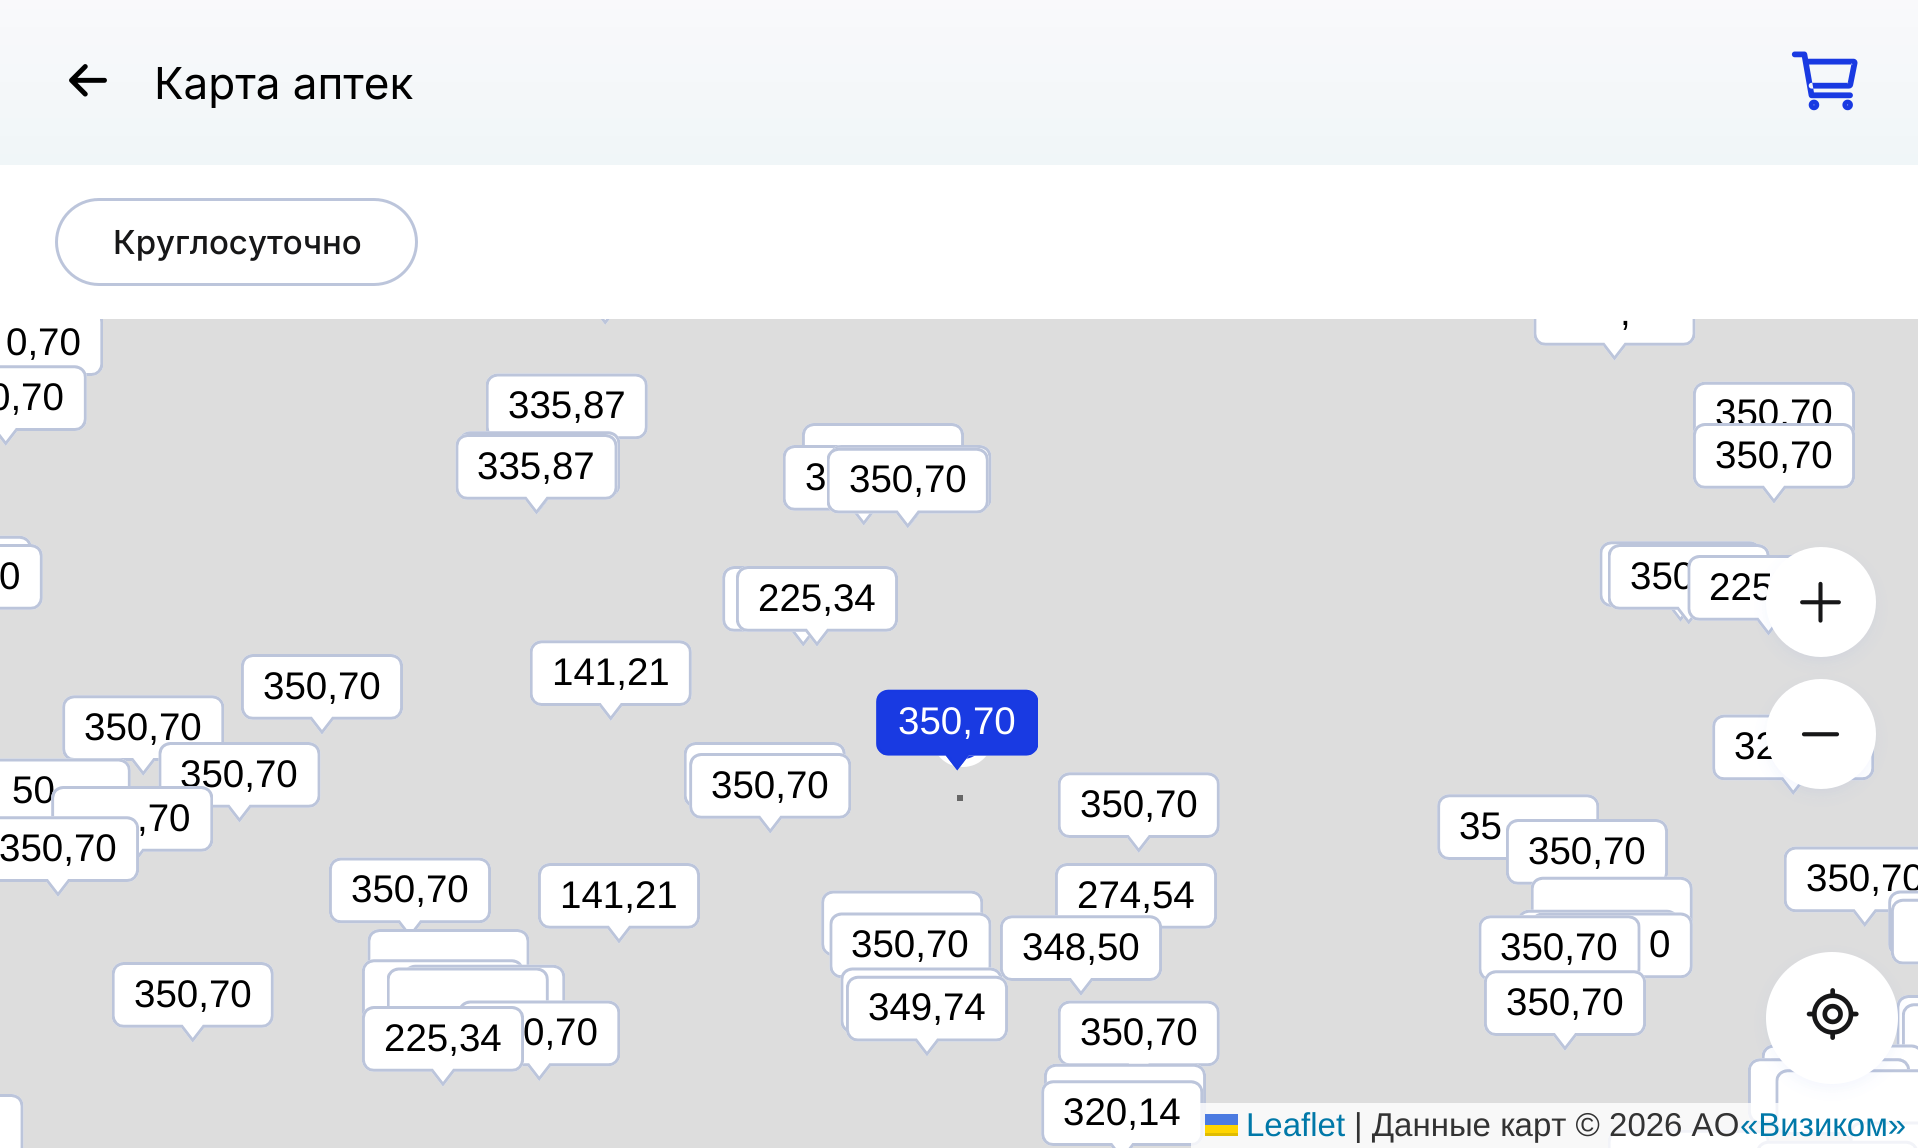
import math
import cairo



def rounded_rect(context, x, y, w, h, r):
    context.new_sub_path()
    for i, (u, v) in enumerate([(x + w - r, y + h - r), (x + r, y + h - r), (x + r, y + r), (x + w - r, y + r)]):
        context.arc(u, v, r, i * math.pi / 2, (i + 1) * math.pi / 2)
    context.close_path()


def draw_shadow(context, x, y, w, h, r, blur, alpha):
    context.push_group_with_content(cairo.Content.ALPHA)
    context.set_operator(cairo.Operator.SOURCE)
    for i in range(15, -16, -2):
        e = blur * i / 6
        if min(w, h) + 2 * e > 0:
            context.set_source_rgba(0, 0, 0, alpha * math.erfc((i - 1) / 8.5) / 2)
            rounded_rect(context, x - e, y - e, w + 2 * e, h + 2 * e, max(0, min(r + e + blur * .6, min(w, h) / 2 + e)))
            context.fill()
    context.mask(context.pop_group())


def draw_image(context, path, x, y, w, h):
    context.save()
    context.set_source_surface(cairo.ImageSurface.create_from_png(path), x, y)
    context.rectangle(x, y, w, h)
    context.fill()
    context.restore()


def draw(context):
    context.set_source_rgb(1, 1, 1)
    context.paint()
    gradient = cairo.LinearGradient(960, 0, 960, 165)
    gradient.add_color_stop_rgba(0, 249 / 255, 249 / 255, 251 / 255, 1)
    gradient.add_color_stop_rgba(0.99, 240 / 255, 246 / 255, 248 / 255, 1)
    context.set_source(gradient)
    context.rectangle(0, 0, 1918, 165)
    context.fill()
    draw_image(context, "images/1.png", 69, 64, 38, 33)
    draw_image(context, "images/2.png", 1791, 51, 67, 60)
    rounded_rect(context, 56.5, 199.5, 360, 85, 42.5)
    context.set_source_rgb(188 / 255, 197 / 255, 219 / 255)
    context.set_line_width(3)
    context.stroke()
    context.set_source_rgb(221 / 255, 221 / 255, 221 / 255)
    context.rectangle(0, 319, 1918, 829)
    context.fill()
    draw_image(context, "images/3.png", 601, 319, 9, 6)
    draw_image(context, "images/4.png", 1533, 319, 163, 42)
    draw_image(context, "images/5.png", 0, 319, 103, 57)
    draw_image(context, "images/6.png", 0, 365, 87, 81)
    draw_image(context, "images/7.png", 486, 373, 162, 67)
    draw_image(context, "images/8.png", 1693, 381, 162, 52)
    draw_image(context, "images/9.png", 458, 431, 162, 81)
    draw_image(context, "images/10.png", 802, 423, 162, 22)
    draw_image(context, "images/12.png", 455, 434, 163, 81)
    draw_image(context, "images/13.png", 783, 445, 91, 81)
    draw_image(context, "images/14.png", 831, 445, 161, 81)
    draw_image(context, "images/15.png", 827, 447, 162, 82)
    draw_image(context, "images/16.png", 0, 535, 32, 9)
    draw_image(context, "images/17.png", 0, 544, 43, 66)
    draw_image(context, "images/18.png", 1599, 541, 158, 81)
    draw_image(context, "images/19.png", 722, 566, 155, 81)
    draw_image(context, "images/20.png", 1608, 544, 162, 81)
    draw_image(context, "images/22.png", 736, 566, 162, 81)
    draw_image(context, "images/23.png", 241, 654, 162, 81)
    draw_image(context, "images/24.png", 530, 640, 162, 81)
    context.set_source_rgb(25 / 255, 58 / 255, 226 / 255)
    rounded_rect(context, 936, 711, 53, 52, 26)
    context.fill_preserve()
    context.set_source_rgb(1, 1, 1)
    context.set_line_width(8)
    context.stroke()
    draw_image(context, "images/25.png", 876, 689, 162, 82)
    context.set_source_rgb(102 / 255, 102 / 255, 102 / 255)
    context.rectangle(957, 795, 6, 6)
    context.fill()
    draw_image(context, "images/26.png", 876, 689, 162, 82)
    draw_image(context, "images/27.png", 62, 695, 162, 81)
    draw_image(context, "images/29.png", 684, 742, 162, 65)
    draw_image(context, "images/30.png", 1712, 714, 162, 81)
    draw_image(context, "images/31.png", 0, 758, 131, 59)
    draw_image(context, "images/33.png", 689, 753, 162, 81)
    draw_image(context, "images/24.png", 1058, 772, 162, 81)
    draw_image(context, "images/34.png", 1437, 794, 162, 66)
    draw_image(context, "images/36.png", 1506, 819, 162, 66)
    draw_image(context, "images/37.png", 329, 857, 162, 72)
    draw_image(context, "images/23.png", 538, 863, 162, 81)
    draw_image(context, "images/38.png", 821, 890, 162, 66)
    draw_image(context, "images/39.png", 1055, 863, 162, 66)
    draw_image(context, "images/40.png", 1531, 876, 162, 59)
    draw_image(context, "images/41.png", 1784, 846, 134, 81)
    draw_image(context, "images/43.png", 1518, 909, 158, 7)
    draw_image(context, "images/45.png", 367, 929, 163, 36)
    draw_image(context, "images/46.png", 829, 912, 163, 67)
    draw_image(context, "images/47.png", 1000, 915, 162, 81)
    draw_image(context, "images/49.png", 1534, 912, 159, 67)
    draw_image(context, "images/48.png", 1478, 915, 163, 65)
    draw_image(context, "images/50.png", 362, 959, 161, 57)
    draw_image(context, "images/51.png", 407, 964, 158, 37)
    draw_image(context, "images/52.png", 112, 962, 162, 81)
    draw_image(context, "images/53.png", 387, 967, 162, 39)
    draw_image(context, "images/54.png", 840, 967, 163, 81)
    draw_image(context, "images/55.png", 1484, 970, 162, 81)
    draw_image(context, "images/56.png", 846, 975, 162, 81)
    draw_image(context, "images/57.png", 1896, 995, 22, 50)
    draw_image(context, "images/59.png", 460, 1000, 160, 81)
    draw_image(context, "images/58.png", 362, 1006, 162, 81)
    draw_image(context, "images/7.png", 1058, 1000, 162, 67)
    draw_image(context, "images/60.png", 1902, 1003, 16, 43)
    draw_image(context, "images/61.png", 1762, 1044, 156, 26)
    draw_image(context, "images/62.png", 1748, 1058, 162, 81)
    draw_image(context, "images/63.png", 1044, 1063, 162, 63)
    draw_image(context, "images/64.png", 1771, 1058, 139, 50)
    draw_image(context, "images/65.png", 0, 1094, 24, 54)
    draw_image(context, "images/66.png", 1041, 1080, 162, 68)
    draw_image(context, "images/67.png", 1775, 1069, 143, 72)
    draw_image(context, "images/68.png", 1608, 1129, 162, 19)
    draw_image(context, "images/69.png", 1850, 1121, 68, 27)
    draw_image(context, "images/70.png", 1757, 1140, 161, 8)
    context.set_source_rgb(50 / 255, 99 / 255, 226 / 255)
    draw_shadow(context, 1766, 685, 110, 110, 55, 8, 0.06)
    context.select_font_face("Inter")
    context.set_font_size(44)
    context.set_source_rgb(0, 0, 0)
    context.move_to(154, 99)
    context.show_text("Карта аптек")
    context.select_font_face("Inter Medium")
    context.set_font_size(33)
    context.set_source_rgb(23 / 255, 23 / 255, 24 / 255)
    context.move_to(113, 254)
    context.show_text("Круглосуточно")
    context.select_font_face("Liberation Sans")
    context.set_font_size(38.5)
    context.set_source_rgb(0, 0, 0)
    context.move_to(1620, 325)
    context.show_text(",")
    context.move_to(6, 355)
    context.show_text("0,70")
    context.move_to(-11, 410)
    context.show_text("0,70")
    context.move_to(508, 418)
    context.show_text("335,87")
    context.move_to(1715, 426)
    context.show_text("350,70")
    draw_image(context, "images/11.png", 1693, 423, 162, 81)
    context.move_to(1715, 468)
    context.show_text("350,70")
    context.move_to(477, 479)
    context.show_text("335,87")
    context.move_to(805, 490)
    context.show_text("3")
    context.move_to(849, 492)
    context.show_text("350,70")
    context.move_to(-1, 589)
    context.show_text("0")
    context.move_to(1630, 589)
    context.show_text("350")
    draw_image(context, "images/21.png", 1687, 555, 106, 81)
    context.move_to(1709, 600)
    context.show_text("225")
    context.move_to(758, 611)
    context.show_text("225,34")
    context.move_to(263, 699)
    context.show_text("350,70")
    context.move_to(552, 685)
    context.show_text("141,21")
    context.set_source_rgb(1, 1, 1)
    context.move_to(898, 734)
    context.show_text("350,70")
    context.set_source_rgb(0, 0, 0)
    context.move_to(84, 740)
    context.show_text("350,70")
    draw_image(context, "images/28.png", 158, 742, 163, 81)
    context.move_to(180, 787)
    context.show_text("350,70")
    context.move_to(1734, 759)
    context.show_text("32")
    context.move_to(12, 803)
    context.show_text("50")
    draw_image(context, "images/32.png", 51, 786, 162, 72)
    context.move_to(137, 831)
    context.show_text(",70")
    context.move_to(711, 798)
    context.show_text("350,70")
    context.move_to(1080, 817)
    context.show_text("350,70")
    context.move_to(1459, 839)
    context.show_text("35")
    draw_image(context, "images/35.png", 0, 816, 139, 81)
    context.move_to(-1, 861)
    context.show_text("350,70")
    context.move_to(1528, 864)
    context.show_text("350,70")
    context.move_to(351, 902)
    context.show_text("350,70")
    context.move_to(560, 908)
    context.show_text("141,21")
    context.move_to(1077, 908)
    context.show_text("274,54")
    context.move_to(1806, 891)
    context.show_text("350,70")
    draw_image(context, "images/42.png", 1888, 890, 30, 62)
    draw_image(context, "images/44.png", 1891, 898, 27, 67)
    context.move_to(851, 957)
    context.show_text("350,70")
    context.move_to(1022, 960)
    context.show_text("348,50")
    context.move_to(1500, 960)
    context.show_text("350,70")
    context.move_to(1649, 957)
    context.show_text("0")
    context.move_to(134, 1007)
    context.show_text("350,70")
    context.move_to(1506, 1015)
    context.show_text("350,70")
    context.move_to(868, 1020)
    context.show_text("349,74")
    context.move_to(384, 1051)
    context.show_text("225,34")
    context.move_to(523, 1045)
    context.show_text("0,70")
    context.move_to(1080, 1045)
    context.show_text("350,70")
    context.move_to(1063, 1125)
    context.show_text("320,14")
    context.set_source_rgb(50 / 255, 99 / 255, 226 / 255)
    draw_shadow(context, 1766, 553, 110, 110, 55, 8, 0.06)
    context.set_source_rgb(1, 1, 1)
    context.arc(1821, 602, 55, 0, 2 * math.pi)
    context.fill()
    draw_image(context, "images/71.png", 1800, 581, 41, 42)
    context.arc(1821, 734, 55, 0, 2 * math.pi)
    context.fill()
    draw_image(context, "images/72.png", 1801, 732, 39, 5)
    context.set_source_rgb(50 / 255, 99 / 255, 226 / 255)
    draw_shadow(context, 1766, 957, 132, 132, 66, 8, 0.06)
    context.set_source_rgb(1, 1, 1)
    context.arc(1832, 1018, 66, 0, 2 * math.pi)
    context.fill()
    draw_image(context, "images/73.png", 1806, 988, 53, 52)
    context.set_source_rgba(1, 1, 1, 0.8)
    context.rectangle(1191, 1103, 727, 45)
    context.fill()
    context.set_font_size(33)
    context.set_source_rgb(0, 120 / 255, 168 / 255)
    context.move_to(1246, 1136)
    context.show_text("Leaflet")
    context.set_source_rgb(76 / 255, 123 / 255, 225 / 255)
    context.rectangle(1205, 1114, 33, 11)
    context.fill()
    context.set_source_rgb(1, 213 / 255, 0)
    context.rectangle(1205, 1125, 33, 8)
    context.fill()
    context.set_source_rgb(224 / 255, 188 / 255, 0)
    context.rectangle(1205, 1133, 33, 3)
    context.fill()
    context.set_source_rgb(51 / 255, 51 / 255, 51 / 255)
    context.move_to(1354, 1136)
    context.show_text("| Данные карт © 2026 АО")
    context.set_source_rgb(0, 120 / 255, 168 / 255)
    context.move_to(1740, 1136)
    context.show_text("«Визиком»")


surface = cairo.ImageSurface(cairo.Format.RGB24, 1918, 1148)
context = cairo.Context(surface)
options = cairo.FontOptions()
options.set_hint_metrics(cairo.HintMetrics.OFF)
options.set_hint_style(cairo.HintStyle.NONE)
context.set_font_options(options)
context.set_miter_limit(4)
draw(context)
surface.write_to_png("out.png")
